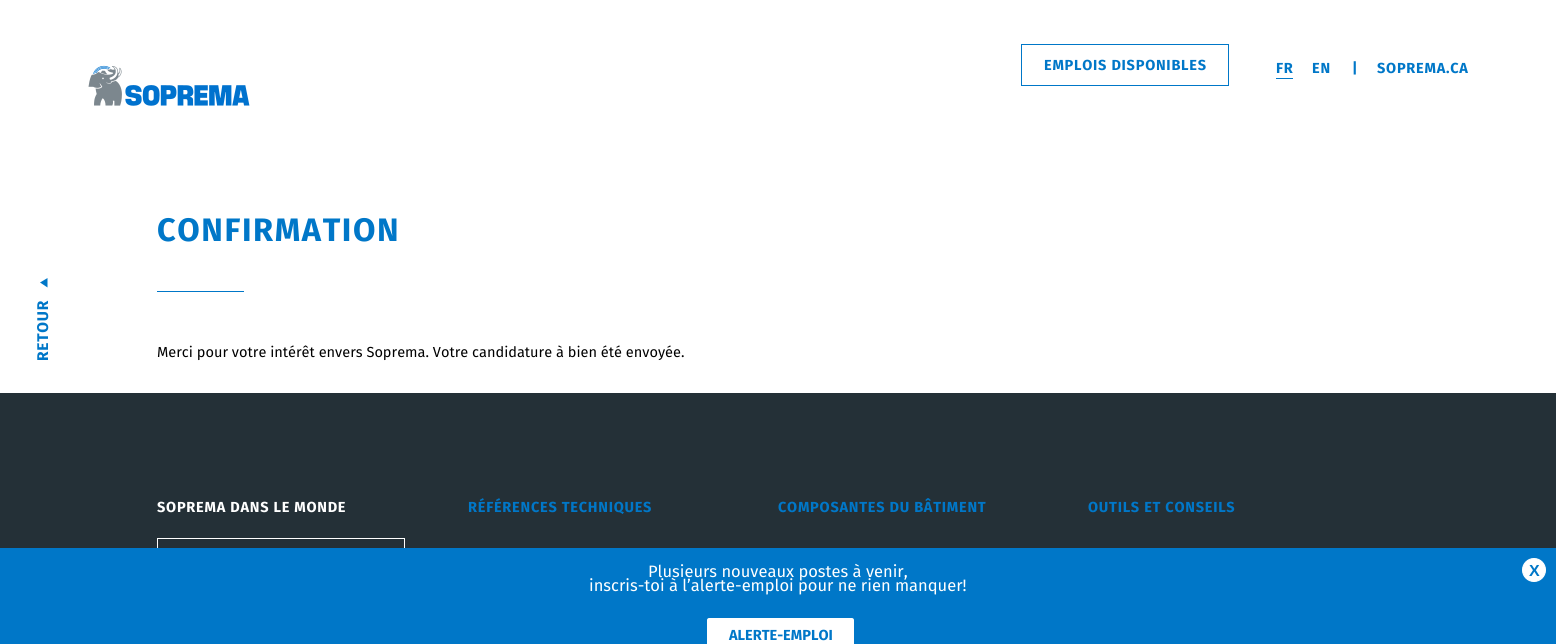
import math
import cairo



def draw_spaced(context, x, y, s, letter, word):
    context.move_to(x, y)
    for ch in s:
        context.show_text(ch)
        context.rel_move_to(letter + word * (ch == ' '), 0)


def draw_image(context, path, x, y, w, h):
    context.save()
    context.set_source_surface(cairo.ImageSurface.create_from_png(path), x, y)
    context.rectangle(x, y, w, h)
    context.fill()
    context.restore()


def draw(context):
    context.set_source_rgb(1, 1, 1)
    context.paint()
    draw_image(context, "images/1.png", 88, 65, 162, 41)
    context.rectangle(1021.5, 44.5, 207, 41)
    context.set_source_rgb(0, 119 / 255, 200 / 255)
    context.set_line_width(1)
    context.stroke()
    context.rectangle(1276, 78, 17, 1)
    context.fill()
    context.rectangle(157, 291, 87, 1)
    context.fill()
    context.new_path()
    context.move_to(47.5, 278)
    context.line_to(47.5, 287.5)
    context.line_to(40, 282.5)
    context.close_path()
    context.fill()
    context.set_source_rgb(36 / 255, 48 / 255, 55 / 255)
    context.rectangle(0, 393, 1556, 155)
    context.fill()
    context.rectangle(157.5, 538.5, 247, 53)
    context.set_source_rgb(1, 1, 1)
    context.stroke()
    context.set_source_rgb(0, 119 / 255, 200 / 255)
    context.rectangle(0, 548, 1556, 96)
    context.fill()
    context.set_source_rgb(1, 1, 1)
    context.new_path()
    context.move_to(709, 618)
    context.line_to(852, 618)
    context.curve_to(853, 618, 854, 619, 854, 620)
    context.line_to(854, 644)
    context.line_to(707, 644)
    context.line_to(707, 620)
    context.curve_to(707, 619, 708, 618, 709, 618)
    context.close_path()
    context.fill()
    context.arc(1534, 570, 11.5, 0, 2 * math.pi)
    context.fill_preserve()
    context.stroke()
    context.select_font_face("Fira Sans", cairo.FontSlant.NORMAL, cairo.FontWeight.BOLD)
    context.set_font_size(14.55)
    context.set_source_rgb(0, 119 / 255, 200 / 255)
    draw_spaced(context, 1044, 70, "EMPLOIS DISPONIBLES", 0.75, 0)
    draw_spaced(context, 1276, 73, "FR", 0.75, 0)
    draw_spaced(context, 1312, 73, "EN", 0.75, 0)
    draw_spaced(context, 1352, 73, "|", 0.75, 0)
    draw_spaced(context, 1377, 73, "SOPREMA.CA", 0.75, 0)
    context.set_font_size(32.5)
    draw_spaced(context, 157, 241, "CONFIRMATION", 1.6, 0)
    context.set_font_size(15.5)
    context.save()
    context.translate(48, 361)
    context.rotate(-90 * math.pi / 180)
    draw_spaced(context, 0, 0, "RETOUR", 0.75, 0)
    context.restore()
    context.select_font_face("Fira Sans")
    context.set_font_size(14.55)
    context.set_source_rgb(0, 0, 0)
    context.move_to(157, 357)
    context.show_text("Merci pour votre intérêt envers Soprema. Votre candidature à bien été envoyée.")
    context.select_font_face("Fira Sans", cairo.FontSlant.NORMAL, cairo.FontWeight.BOLD)
    context.set_source_rgb(1, 1, 1)
    draw_spaced(context, 157, 512, "SOPREMA DANS LE MONDE", 0.75, 0)
    context.set_source_rgb(0, 119 / 255, 200 / 255)
    draw_spaced(context, 468, 512, "RÉFÉRENCES TECHNIQUES", 0.75, 0)
    draw_spaced(context, 778, 512, "COMPOSANTES DU BÂTIMENT", 0.75, 0)
    draw_spaced(context, 1088, 512, "OUTILS ET CONSEILS", 0.75, 0)
    context.select_font_face("Fira Sans")
    context.set_font_size(16.5)
    context.set_source_rgb(1, 1, 1)
    context.move_to(648, 577)
    context.show_text("Plusieurs nouveaux postes à venir,")
    context.move_to(589, 591)
    context.show_text("inscris-toi à l’alerte-emploi pour ne rien manquer!")
    context.select_font_face("Fira Sans", cairo.FontSlant.NORMAL, cairo.FontWeight.BOLD)
    context.set_font_size(14.55)
    context.set_source_rgb(0, 119 / 255, 200 / 255)
    context.move_to(729, 640)
    context.show_text("ALERTE-EMPLOI")
    context.select_font_face("Liberation Sans", cairo.FontSlant.NORMAL, cairo.FontWeight.BOLD)
    context.set_font_size(16)
    context.move_to(1529, 576)
    context.show_text("X")


surface = cairo.ImageSurface(cairo.Format.RGB24, 1556, 644)
context = cairo.Context(surface)
options = cairo.FontOptions()
options.set_hint_metrics(cairo.HintMetrics.OFF)
options.set_hint_style(cairo.HintStyle.NONE)
context.set_font_options(options)
context.set_miter_limit(4)
draw(context)
surface.write_to_png("out.png")
